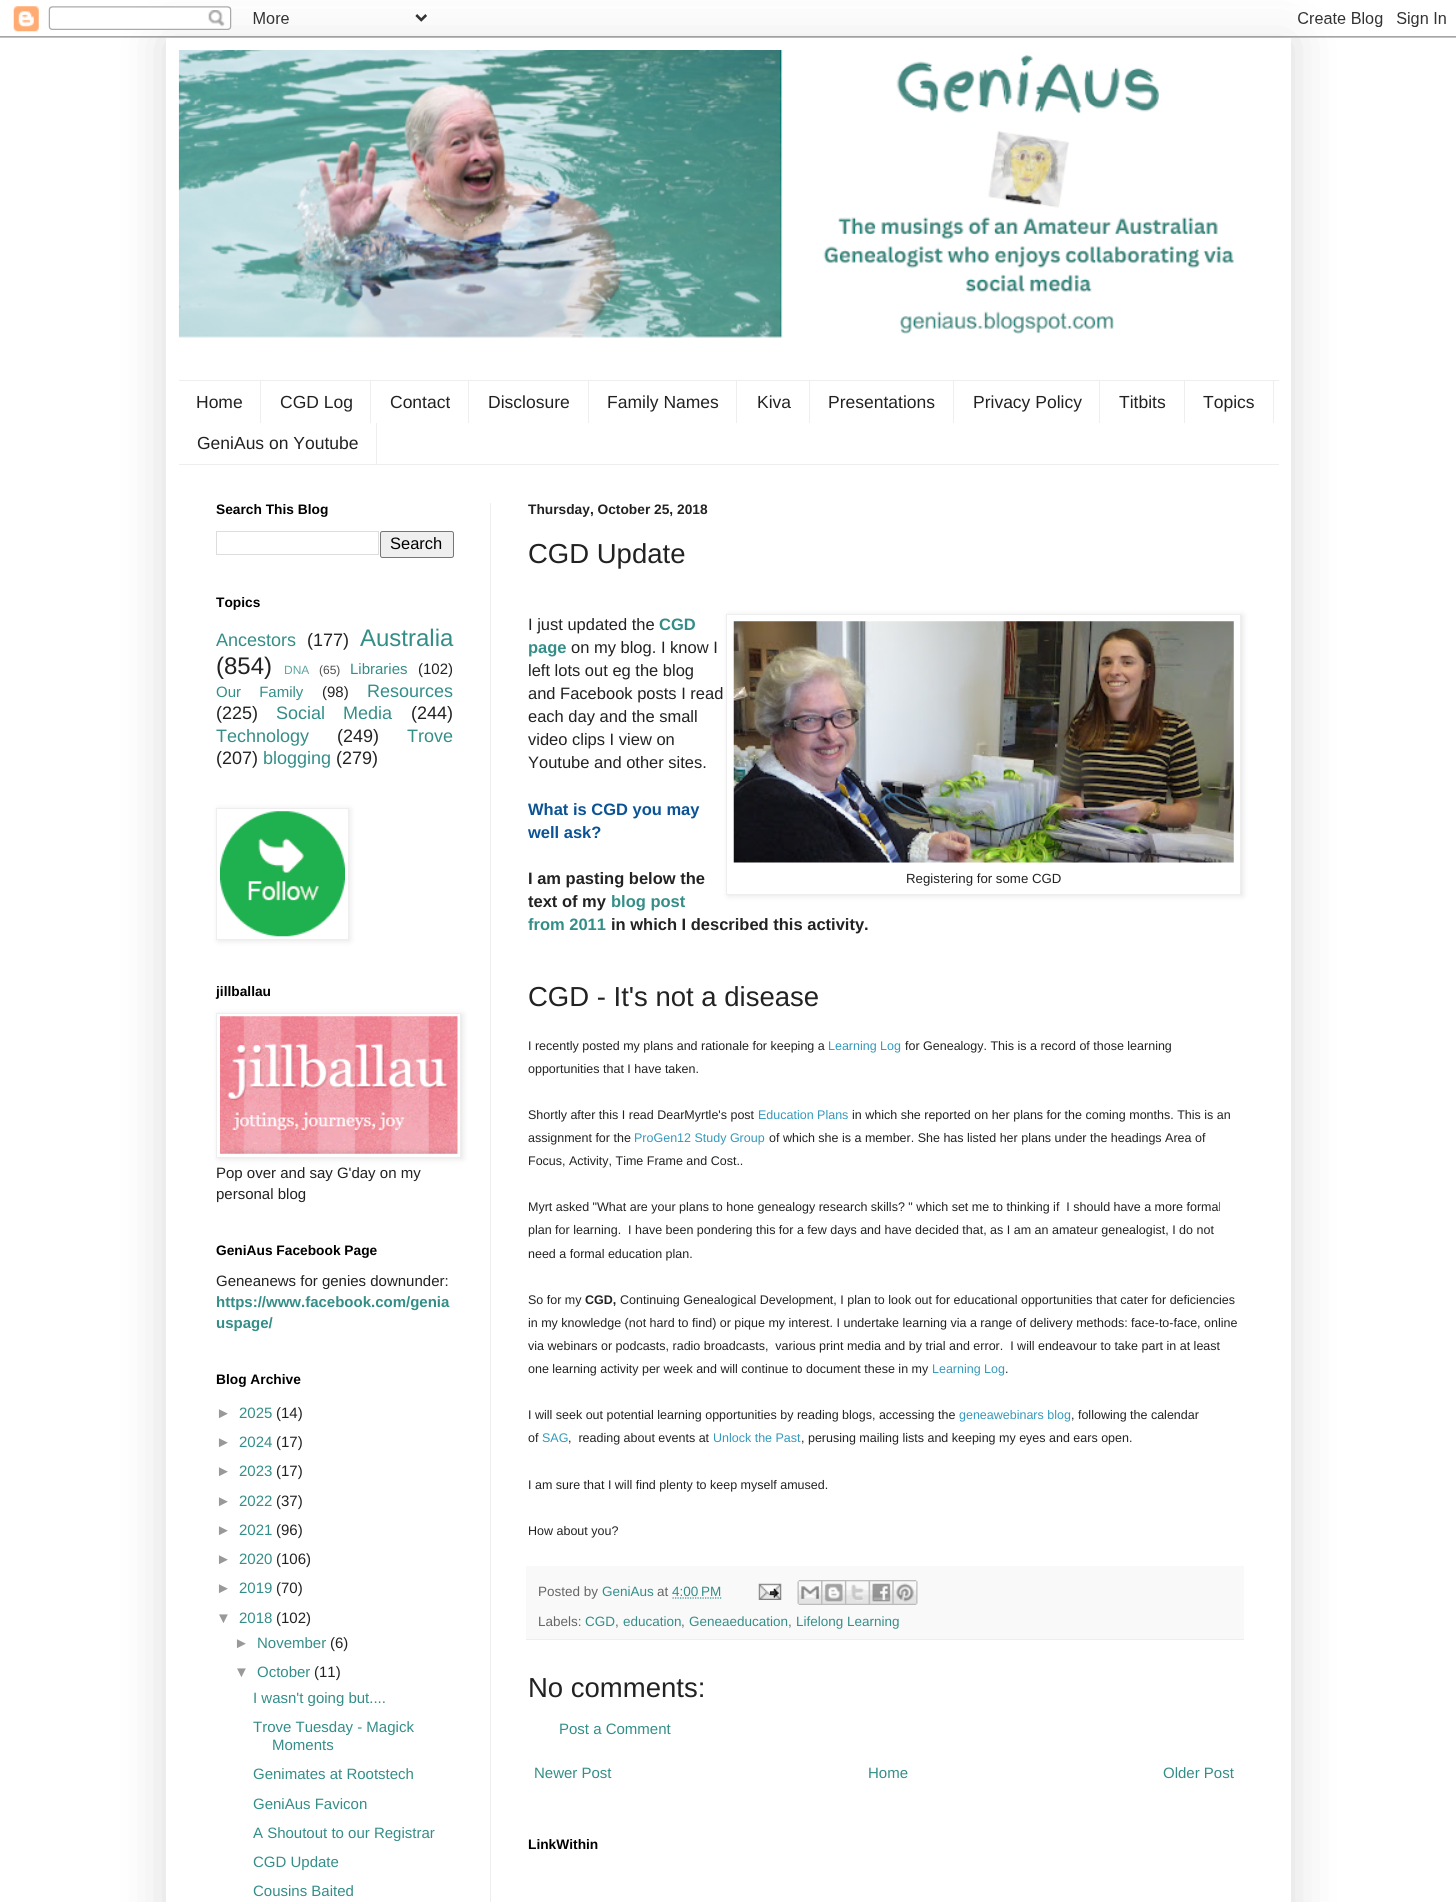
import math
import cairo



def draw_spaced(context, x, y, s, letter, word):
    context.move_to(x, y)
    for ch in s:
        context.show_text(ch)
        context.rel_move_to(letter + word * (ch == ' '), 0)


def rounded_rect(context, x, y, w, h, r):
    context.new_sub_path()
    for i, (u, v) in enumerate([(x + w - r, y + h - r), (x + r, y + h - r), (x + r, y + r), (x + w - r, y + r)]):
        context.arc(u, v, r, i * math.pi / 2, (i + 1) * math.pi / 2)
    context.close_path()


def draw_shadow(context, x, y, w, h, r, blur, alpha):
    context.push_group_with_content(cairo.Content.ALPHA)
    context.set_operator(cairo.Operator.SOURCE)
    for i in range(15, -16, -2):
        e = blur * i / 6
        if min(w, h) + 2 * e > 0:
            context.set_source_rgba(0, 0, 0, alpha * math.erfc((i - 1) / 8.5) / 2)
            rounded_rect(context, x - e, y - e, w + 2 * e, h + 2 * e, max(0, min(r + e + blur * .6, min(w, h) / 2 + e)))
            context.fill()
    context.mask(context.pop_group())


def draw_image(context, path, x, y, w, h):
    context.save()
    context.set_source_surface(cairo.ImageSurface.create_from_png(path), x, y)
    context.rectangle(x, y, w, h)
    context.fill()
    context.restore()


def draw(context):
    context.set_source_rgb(1, 1, 1)
    context.paint()
    context.set_source_rgb(0, 0, 0)
    draw_shadow(context, 166, 38, 1125, 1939, 0, 25, 0.15)
    draw_image(context, "images/1.png", 0, 6, 1456, 32)
    context.set_source_rgb(1, 1, 1)
    context.rectangle(166, 38, 1125, 1864)
    context.fill()
    draw_image(context, "images/2.png", 178, 50, 1056, 288)
    context.set_source_rgb(238 / 255, 238 / 255, 238 / 255)
    context.rectangle(179, 380, 1100, 1)
    context.fill()
    context.rectangle(179, 464, 1100, 1)
    context.fill()
    context.rectangle(260, 381, 1, 42)
    context.fill()
    context.rectangle(370, 381, 1, 42)
    context.fill()
    context.rectangle(468, 381, 1, 42)
    context.fill()
    context.rectangle(588, 381, 1, 42)
    context.fill()
    context.rectangle(736, 381, 1, 42)
    context.fill()
    context.rectangle(809, 381, 1, 42)
    context.fill()
    context.rectangle(953, 381, 1, 42)
    context.fill()
    context.rectangle(1099, 381, 1, 42)
    context.fill()
    context.rectangle(1184, 381, 1, 42)
    context.fill()
    context.rectangle(1273, 381, 1, 42)
    context.fill()
    context.rectangle(376, 423, 1, 41)
    context.fill()
    context.rectangle(490, 503, 1, 1399)
    context.fill()
    context.rectangle(216.5, 531.5, 162, 23)
    context.set_source_rgb(221 / 255, 221 / 255, 221 / 255)
    context.set_line_width(1)
    context.stroke()
    context.set_source_rgb(239 / 255, 239 / 255, 239 / 255)
    rounded_rect(context, 380.5, 531.5, 73, 26, 2)
    context.fill_preserve()
    context.set_source_rgb(118 / 255, 118 / 255, 118 / 255)
    context.stroke()
    context.set_source_rgb(0, 0, 0)
    draw_shadow(context, 218, 809, 132, 132, 0, 3, 0.1)
    context.set_source_rgb(1, 1, 1)
    context.rectangle(216.5, 808.5, 132, 131)
    context.fill_preserve()
    context.set_source_rgb(238 / 255, 238 / 255, 238 / 255)
    context.stroke()
    draw_image(context, "images/3.png", 220, 811, 125, 126)
    context.set_source_rgb(0, 0, 0)
    draw_shadow(context, 218, 1014, 245, 145, 0, 3, 0.1)
    context.set_source_rgb(1, 1, 1)
    context.rectangle(216.5, 1013.5, 244, 144)
    context.fill_preserve()
    context.set_source_rgb(238 / 255, 238 / 255, 238 / 255)
    context.stroke()
    draw_image(context, "images/4.png", 220, 1016, 238, 138)
    context.set_source_rgb(0, 0, 0)
    draw_shadow(context, 728, 615, 515, 281, 0, 3, 0.1)
    context.set_source_rgb(1, 1, 1)
    context.rectangle(726.5, 614.5, 514, 280)
    context.fill_preserve()
    context.set_source_rgb(238 / 255, 238 / 255, 238 / 255)
    context.stroke()
    draw_image(context, "images/5.png", 733, 621, 501, 242)
    context.set_source_rgb(249 / 255, 249 / 255, 249 / 255)
    context.rectangle(526, 1566, 718, 73)
    context.fill()
    context.set_source_rgb(238 / 255, 238 / 255, 238 / 255)
    context.rectangle(526, 1639, 718, 1)
    context.fill()
    context.new_path()
    context.move_to(672.5, 1598)
    context.line_to(721.5, 1598)
    context.set_source_rgb(52 / 255, 142 / 255, 136 / 255)
    context.set_line_width(1.2)
    context.set_dash([1.25, 1.25])
    context.stroke()
    draw_image(context, "images/6.png", 758, 1583, 24, 17)
    draw_image(context, "images/7.png", 797, 1580, 25, 25)
    draw_image(context, "images/8.png", 821, 1580, 24, 25)
    draw_image(context, "images/9.png", 845, 1580, 24, 25)
    draw_image(context, "images/10.png", 868, 1580, 25, 25)
    draw_image(context, "images/11.png", 892, 1580, 26, 25)
    context.select_font_face("Liberation Sans")
    context.set_font_size(17.5)
    context.set_source_rgb(34 / 255, 34 / 255, 34 / 255)
    context.move_to(196, 408)
    context.show_text("Home")
    context.move_to(280, 408)
    context.show_text("CGD Log")
    context.move_to(390, 408)
    context.show_text("Contact")
    context.move_to(488, 408)
    context.show_text("Disclosure")
    context.move_to(607, 408)
    context.show_text("Family Names")
    context.move_to(757, 408)
    context.show_text("Kiva")
    context.move_to(828, 408)
    context.show_text("Presentations")
    context.move_to(973, 408)
    context.show_text("Privacy Policy")
    context.move_to(1119, 408)
    context.show_text("Titbits")
    context.move_to(1203, 408)
    context.show_text("Topics")
    context.move_to(197, 449)
    context.show_text("GeniAus on Youtube")
    context.select_font_face("Liberation Sans", cairo.FontSlant.NORMAL, cairo.FontWeight.BOLD)
    context.set_font_size(13.75)
    context.set_source_rgb(0, 0, 0)
    context.move_to(216, 514)
    context.show_text("Search This Blog")
    context.select_font_face("Liberation Sans")
    context.set_font_size(16.5)
    context.move_to(390, 549)
    context.show_text("Search")
    context.select_font_face("Liberation Sans", cairo.FontSlant.NORMAL, cairo.FontWeight.BOLD)
    context.set_font_size(13.75)
    context.move_to(216, 607)
    context.show_text("Topics")
    context.select_font_face("Liberation Sans")
    context.set_font_size(18)
    context.set_source_rgb(52 / 255, 142 / 255, 136 / 255)
    context.move_to(216, 646)
    context.show_text("Ancestors")
    context.set_source_rgb(34 / 255, 34 / 255, 34 / 255)
    context.move_to(307, 646)
    context.show_text("(177)")
    context.set_font_size(24)
    context.set_source_rgb(52 / 255, 142 / 255, 136 / 255)
    context.move_to(360, 646)
    context.show_text("Australia")
    context.set_source_rgb(34 / 255, 34 / 255, 34 / 255)
    context.move_to(216, 674)
    context.show_text("(854)")
    context.set_font_size(12)
    context.set_source_rgb(93 / 255, 165 / 255, 160 / 255)
    context.move_to(284, 674)
    context.show_text("DNA")
    context.set_source_rgb(78 / 255, 78 / 255, 78 / 255)
    context.move_to(319, 674)
    context.show_text("(65)")
    context.set_font_size(15)
    context.set_source_rgb(52 / 255, 142 / 255, 136 / 255)
    context.move_to(350, 674)
    context.show_text("Libraries")
    context.set_source_rgb(34 / 255, 34 / 255, 34 / 255)
    context.move_to(418, 674)
    context.show_text("(102)")
    context.set_source_rgb(52 / 255, 142 / 255, 136 / 255)
    draw_spaced(context, 216, 697, "Our Family", 0, 14)
    context.set_source_rgb(34 / 255, 34 / 255, 34 / 255)
    context.move_to(322, 697)
    context.show_text("(98)")
    context.set_font_size(18)
    context.set_source_rgb(52 / 255, 142 / 255, 136 / 255)
    context.move_to(367, 697)
    context.show_text("Resources")
    context.set_source_rgb(34 / 255, 34 / 255, 34 / 255)
    context.move_to(216, 719)
    context.show_text("(225)")
    context.set_source_rgb(52 / 255, 142 / 255, 136 / 255)
    draw_spaced(context, 276, 719, "Social Media", 0, 13)
    context.set_source_rgb(34 / 255, 34 / 255, 34 / 255)
    context.move_to(411, 719)
    context.show_text("(244)")
    context.set_source_rgb(52 / 255, 142 / 255, 136 / 255)
    context.move_to(216, 742)
    context.show_text("Technology")
    context.set_source_rgb(34 / 255, 34 / 255, 34 / 255)
    context.move_to(337, 742)
    context.show_text("(249)")
    context.set_source_rgb(52 / 255, 142 / 255, 136 / 255)
    context.move_to(407, 742)
    context.show_text("Trove")
    context.set_source_rgb(34 / 255, 34 / 255, 34 / 255)
    context.move_to(216, 764)
    context.show_text("(207)")
    context.set_source_rgb(52 / 255, 142 / 255, 136 / 255)
    context.move_to(263, 764)
    context.show_text("blogging")
    context.set_source_rgb(34 / 255, 34 / 255, 34 / 255)
    context.move_to(336, 764)
    context.show_text("(279)")
    context.select_font_face("Liberation Sans", cairo.FontSlant.NORMAL, cairo.FontWeight.BOLD)
    context.set_font_size(13.75)
    context.set_source_rgb(0, 0, 0)
    context.move_to(216, 996)
    context.show_text("jillballau")
    context.select_font_face("Liberation Sans")
    context.set_font_size(15)
    context.set_source_rgb(34 / 255, 34 / 255, 34 / 255)
    context.move_to(216, 1178)
    context.show_text("Pop over and say G'day on my")
    context.move_to(216, 1199)
    context.show_text("personal blog")
    context.select_font_face("Liberation Sans", cairo.FontSlant.NORMAL, cairo.FontWeight.BOLD)
    context.set_font_size(13.75)
    context.set_source_rgb(0, 0, 0)
    context.move_to(216, 1255)
    context.show_text("GeniAus Facebook Page")
    context.select_font_face("Liberation Sans")
    context.set_font_size(15)
    context.set_source_rgb(34 / 255, 34 / 255, 34 / 255)
    context.move_to(216, 1286)
    context.show_text("Geneanews for genies downunder:")
    context.select_font_face("Liberation Sans", cairo.FontSlant.NORMAL, cairo.FontWeight.BOLD)
    context.set_source_rgb(52 / 255, 142 / 255, 136 / 255)
    context.move_to(216, 1307)
    context.show_text("https://www.facebook.com/genia")
    context.move_to(216, 1328)
    context.show_text("uspage/")
    context.set_font_size(13.75)
    context.set_source_rgb(0, 0, 0)
    context.move_to(216, 1384)
    context.show_text("Blog Archive")
    context.select_font_face("Liberation Sans")
    context.set_font_size(15)
    context.set_source_rgb(153 / 255, 153 / 255, 153 / 255)
    context.move_to(216, 1418)
    context.show_text("►")
    context.set_source_rgb(52 / 255, 142 / 255, 136 / 255)
    context.move_to(239, 1418)
    context.show_text("2025")
    context.set_source_rgb(34 / 255, 34 / 255, 34 / 255)
    context.move_to(276, 1418)
    context.show_text("(14)")
    context.set_source_rgb(153 / 255, 153 / 255, 153 / 255)
    context.move_to(216, 1447)
    context.show_text("►")
    context.set_source_rgb(52 / 255, 142 / 255, 136 / 255)
    context.move_to(239, 1447)
    context.show_text("2024")
    context.set_source_rgb(34 / 255, 34 / 255, 34 / 255)
    context.move_to(276, 1447)
    context.show_text("(17)")
    context.set_source_rgb(153 / 255, 153 / 255, 153 / 255)
    context.move_to(216, 1476)
    context.show_text("►")
    context.set_source_rgb(52 / 255, 142 / 255, 136 / 255)
    context.move_to(239, 1476)
    context.show_text("2023")
    context.set_source_rgb(34 / 255, 34 / 255, 34 / 255)
    context.move_to(276, 1476)
    context.show_text("(17)")
    context.set_source_rgb(153 / 255, 153 / 255, 153 / 255)
    context.move_to(216, 1506)
    context.show_text("►")
    context.set_source_rgb(52 / 255, 142 / 255, 136 / 255)
    context.move_to(239, 1506)
    context.show_text("2022")
    context.set_source_rgb(34 / 255, 34 / 255, 34 / 255)
    context.move_to(276, 1506)
    context.show_text("(37)")
    context.set_source_rgb(153 / 255, 153 / 255, 153 / 255)
    context.move_to(216, 1535)
    context.show_text("►")
    context.set_source_rgb(52 / 255, 142 / 255, 136 / 255)
    context.move_to(239, 1535)
    context.show_text("2021")
    context.set_source_rgb(34 / 255, 34 / 255, 34 / 255)
    context.move_to(276, 1535)
    context.show_text("(96)")
    context.set_source_rgb(153 / 255, 153 / 255, 153 / 255)
    context.move_to(216, 1564)
    context.show_text("►")
    context.set_source_rgb(52 / 255, 142 / 255, 136 / 255)
    context.move_to(239, 1564)
    context.show_text("2020")
    context.set_source_rgb(34 / 255, 34 / 255, 34 / 255)
    context.move_to(276, 1564)
    context.show_text("(106)")
    context.set_source_rgb(153 / 255, 153 / 255, 153 / 255)
    context.move_to(216, 1593)
    context.show_text("►")
    context.set_source_rgb(52 / 255, 142 / 255, 136 / 255)
    context.move_to(239, 1593)
    context.show_text("2019")
    context.set_source_rgb(34 / 255, 34 / 255, 34 / 255)
    context.move_to(276, 1593)
    context.show_text("(70)")
    context.set_source_rgb(153 / 255, 153 / 255, 153 / 255)
    context.move_to(216, 1623)
    context.show_text("▼")
    context.set_source_rgb(52 / 255, 142 / 255, 136 / 255)
    context.move_to(239, 1623)
    context.show_text("2018")
    context.set_source_rgb(34 / 255, 34 / 255, 34 / 255)
    context.move_to(276, 1623)
    context.show_text("(102)")
    context.set_source_rgb(153 / 255, 153 / 255, 153 / 255)
    context.move_to(234, 1648)
    context.show_text("►")
    context.set_source_rgb(52 / 255, 142 / 255, 136 / 255)
    context.move_to(257, 1648)
    context.show_text("November")
    context.set_source_rgb(34 / 255, 34 / 255, 34 / 255)
    context.move_to(330, 1648)
    context.show_text("(6)")
    context.set_source_rgb(153 / 255, 153 / 255, 153 / 255)
    context.move_to(234, 1677)
    context.show_text("▼")
    context.set_source_rgb(52 / 255, 142 / 255, 136 / 255)
    context.move_to(257, 1677)
    context.show_text("October")
    context.set_source_rgb(34 / 255, 34 / 255, 34 / 255)
    context.move_to(314, 1677)
    context.show_text("(11)")
    context.set_source_rgb(52 / 255, 142 / 255, 136 / 255)
    context.move_to(253, 1703)
    context.show_text("I wasn't going but....")
    context.move_to(253, 1732)
    context.show_text("Trove Tuesday - Magick")
    context.move_to(272, 1750)
    context.show_text("Moments")
    context.move_to(253, 1779)
    context.show_text("Genimates at Rootstech")
    context.move_to(253, 1809)
    context.show_text("GeniAus Favicon")
    context.move_to(253, 1838)
    context.show_text("A Shoutout to our Registrar")
    context.move_to(253, 1867)
    context.show_text("CGD Update")
    context.move_to(253, 1896)
    context.show_text("Cousins Baited")
    context.select_font_face("Liberation Sans", cairo.FontSlant.NORMAL, cairo.FontWeight.BOLD)
    context.set_font_size(13.75)
    context.set_source_rgb(34 / 255, 34 / 255, 34 / 255)
    context.move_to(528, 514)
    context.show_text("Thursday, October 25, 2018")
    context.select_font_face("Liberation Sans")
    context.set_font_size(27.5)
    context.move_to(528, 563)
    context.show_text("CGD Update")
    context.set_font_size(16.5)
    context.move_to(528, 630)
    context.show_text("I just updated the")
    context.select_font_face("Liberation Sans", cairo.FontSlant.NORMAL, cairo.FontWeight.BOLD)
    context.set_source_rgb(52 / 255, 142 / 255, 136 / 255)
    context.move_to(659, 630)
    context.show_text("CGD")
    context.move_to(528, 653)
    context.show_text("page")
    context.select_font_face("Liberation Sans")
    context.set_source_rgb(34 / 255, 34 / 255, 34 / 255)
    context.move_to(571, 653)
    context.show_text("on my blog. I know I")
    context.move_to(528, 676)
    context.show_text("left lots out eg the blog")
    context.move_to(528, 699)
    context.show_text("and Facebook posts I read")
    context.move_to(528, 722)
    context.show_text("each day and the small")
    context.move_to(528, 745)
    context.show_text("video clips I view on")
    context.move_to(528, 768)
    context.show_text("Youtube and other sites.")
    context.select_font_face("Liberation Sans", cairo.FontSlant.NORMAL, cairo.FontWeight.BOLD)
    context.set_source_rgb(11 / 255, 83 / 255, 148 / 255)
    context.move_to(528, 815)
    context.show_text("What is CGD you may")
    context.move_to(528, 838)
    context.show_text("well ask?")
    context.set_source_rgb(34 / 255, 34 / 255, 34 / 255)
    context.move_to(528, 884)
    context.show_text("I am pasting below the")
    context.select_font_face("Liberation Sans")
    context.set_font_size(13.25)
    context.move_to(906, 883)
    context.show_text("Registering for some CGD")
    context.select_font_face("Liberation Sans", cairo.FontSlant.NORMAL, cairo.FontWeight.BOLD)
    context.set_font_size(16.5)
    context.move_to(528, 907)
    context.show_text("text of my")
    context.set_source_rgb(52 / 255, 142 / 255, 136 / 255)
    context.move_to(611, 907)
    context.show_text("blog post")
    context.move_to(528, 930)
    context.show_text("from 2011")
    context.set_source_rgb(34 / 255, 34 / 255, 34 / 255)
    context.move_to(611, 930)
    context.show_text("in which I described this activity.")
    context.select_font_face("Liberation Sans")
    context.set_font_size(27.5)
    context.move_to(528, 1006)
    context.show_text("CGD - It's not a disease")
    context.set_font_size(12.5)
    context.move_to(528, 1050)
    context.show_text("I recently posted my plans and rationale for keeping a")
    context.set_source_rgb(51 / 255, 153 / 255, 187 / 255)
    context.move_to(828, 1050)
    context.show_text("Learning Log")
    context.set_source_rgb(34 / 255, 34 / 255, 34 / 255)
    context.move_to(905, 1050)
    context.show_text("for Genealogy. This is a record of those learning")
    context.move_to(528, 1073)
    context.show_text("opportunities that I have taken.")
    context.move_to(528, 1119)
    context.show_text("Shortly after this I read DearMyrtle's post")
    context.set_source_rgb(51 / 255, 153 / 255, 187 / 255)
    context.move_to(758, 1119)
    context.show_text("Education Plans")
    context.set_source_rgb(34 / 255, 34 / 255, 34 / 255)
    context.move_to(852, 1119)
    context.show_text("in which she reported on her plans for the coming months. This is an")
    context.move_to(528, 1142)
    context.show_text("assignment for the")
    context.set_source_rgb(51 / 255, 153 / 255, 187 / 255)
    context.move_to(634, 1142)
    context.show_text("ProGen12 Study Group")
    context.set_source_rgb(34 / 255, 34 / 255, 34 / 255)
    context.move_to(769, 1142)
    context.show_text("of which she is a member. She has listed her plans under the headings Area of")
    context.move_to(528, 1165)
    context.show_text("Focus, Activity, Time Frame and Cost..")
    context.move_to(528, 1211)
    context.show_text("Myrt asked \"What are your plans to hone genealogy research skills? \" which set me to thinking if  I should have a more formal")
    context.move_to(528, 1234)
    context.show_text("plan for learning.  I have been pondering this for a few days and have decided that, as I am an amateur genealogist, I do not")
    context.move_to(528, 1258)
    context.show_text("need a formal education plan.")
    context.move_to(528, 1304)
    context.show_text("So for my")
    context.select_font_face("Liberation Sans", cairo.FontSlant.NORMAL, cairo.FontWeight.BOLD)
    context.move_to(585, 1304)
    context.show_text("CGD,")
    context.select_font_face("Liberation Sans")
    context.move_to(620, 1304)
    context.show_text("Continuing Genealogical Development, I plan to look out for educational opportunities that cater for deficiencies")
    context.move_to(528, 1327)
    context.show_text("in my knowledge (not hard to find) or pique my interest. I undertake learning via a range of delivery methods: face-to-face, online")
    context.move_to(528, 1350)
    context.show_text("via webinars or podcasts, radio broadcasts,  various print media and by trial and error.  I will endeavour to take part in at least")
    context.move_to(528, 1373)
    context.show_text("one learning activity per week and will continue to document these in my")
    context.set_source_rgb(51 / 255, 153 / 255, 187 / 255)
    context.move_to(932, 1373)
    context.show_text("Learning Log")
    context.set_source_rgb(34 / 255, 34 / 255, 34 / 255)
    context.move_to(1005, 1373)
    context.show_text(".")
    context.move_to(528, 1419)
    context.show_text("I will seek out potential learning opportunities by reading blogs, accessing the")
    context.set_source_rgb(51 / 255, 153 / 255, 187 / 255)
    context.move_to(959, 1419)
    context.show_text("geneawebinars blog")
    context.set_source_rgb(34 / 255, 34 / 255, 34 / 255)
    context.move_to(1071, 1419)
    context.show_text(", following the calendar")
    context.move_to(528, 1442)
    context.show_text("of")
    context.set_source_rgb(51 / 255, 153 / 255, 187 / 255)
    context.move_to(542, 1442)
    context.show_text("SAG")
    context.set_source_rgb(34 / 255, 34 / 255, 34 / 255)
    context.move_to(568, 1442)
    context.show_text(",  reading about events at")
    context.set_source_rgb(51 / 255, 153 / 255, 187 / 255)
    context.move_to(713, 1442)
    context.show_text("Unlock the Past")
    context.set_source_rgb(34 / 255, 34 / 255, 34 / 255)
    context.move_to(801, 1442)
    context.show_text(", perusing mailing lists and keeping my eyes and ears open.")
    context.move_to(528, 1489)
    context.show_text("I am sure that I will find plenty to keep myself amused.")
    context.move_to(528, 1535)
    context.show_text("How about you?")
    context.set_font_size(13.5)
    context.set_source_rgb(102 / 255, 102 / 255, 102 / 255)
    context.move_to(538, 1596)
    context.show_text("Posted by")
    context.set_source_rgb(52 / 255, 142 / 255, 136 / 255)
    context.move_to(602, 1596)
    context.show_text("GeniAus")
    context.set_source_rgb(102 / 255, 102 / 255, 102 / 255)
    context.move_to(657, 1596)
    context.show_text("at")
    context.set_source_rgb(52 / 255, 142 / 255, 136 / 255)
    context.move_to(672, 1596)
    context.show_text("4:00 PM")
    context.set_source_rgb(102 / 255, 102 / 255, 102 / 255)
    context.move_to(538, 1626)
    context.show_text("Labels:")
    context.set_source_rgb(52 / 255, 142 / 255, 136 / 255)
    context.move_to(585, 1626)
    context.show_text("CGD")
    context.set_source_rgb(102 / 255, 102 / 255, 102 / 255)
    context.move_to(615, 1626)
    context.show_text(",")
    context.set_source_rgb(52 / 255, 142 / 255, 136 / 255)
    context.move_to(623, 1626)
    context.show_text("education")
    context.set_source_rgb(102 / 255, 102 / 255, 102 / 255)
    context.move_to(681, 1626)
    context.show_text(",")
    context.set_source_rgb(52 / 255, 142 / 255, 136 / 255)
    context.move_to(689, 1626)
    context.show_text("Geneaeducation")
    context.set_source_rgb(102 / 255, 102 / 255, 102 / 255)
    context.move_to(788, 1626)
    context.show_text(",")
    context.set_source_rgb(52 / 255, 142 / 255, 136 / 255)
    context.move_to(796, 1626)
    context.show_text("Lifelong Learning")
    context.set_font_size(27.5)
    context.set_source_rgb(34 / 255, 34 / 255, 34 / 255)
    context.move_to(528, 1697)
    context.show_text("No comments:")
    context.set_font_size(15)
    context.set_source_rgb(52 / 255, 142 / 255, 136 / 255)
    context.move_to(559, 1734)
    context.show_text("Post a Comment")
    context.move_to(534, 1778)
    context.show_text("Newer Post")
    context.move_to(868, 1778)
    context.show_text("Home")
    context.move_to(1163, 1778)
    context.show_text("Older Post")
    context.select_font_face("Liberation Sans", cairo.FontSlant.NORMAL, cairo.FontWeight.BOLD)
    context.set_font_size(13.75)
    context.set_source_rgb(0, 0, 0)
    context.move_to(528, 1849)
    context.show_text("LinkWithin")


surface = cairo.ImageSurface(cairo.Format.RGB24, 1456, 1902)
context = cairo.Context(surface)
options = cairo.FontOptions()
options.set_hint_metrics(cairo.HintMetrics.OFF)
options.set_hint_style(cairo.HintStyle.NONE)
context.set_font_options(options)
context.set_miter_limit(4)
draw(context)
surface.write_to_png("out.png")
